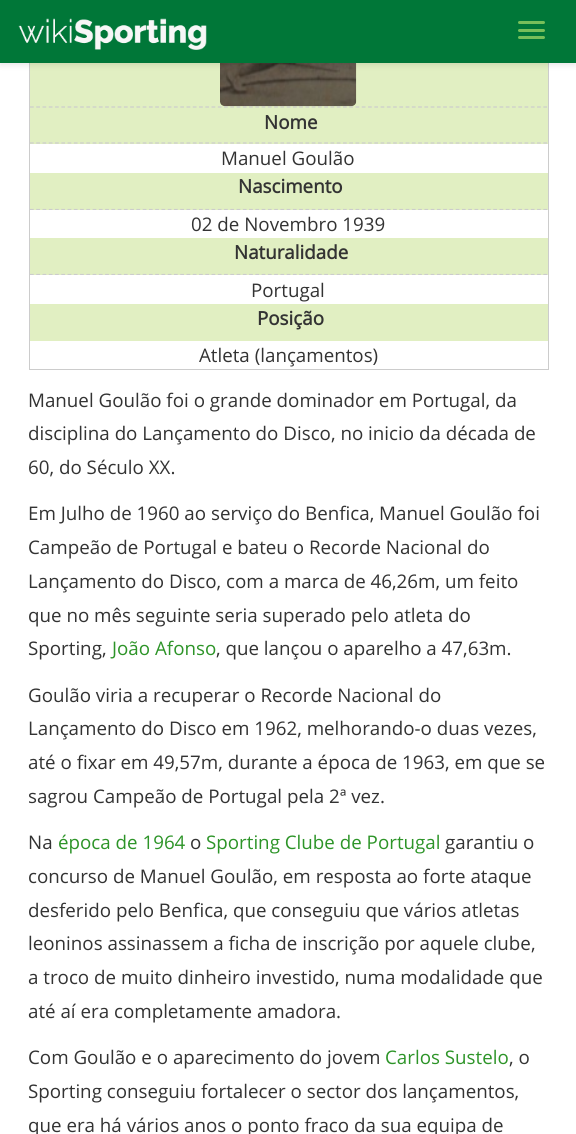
import math
import cairo



def rounded_rect(context, x, y, w, h, r):
    context.new_sub_path()
    for i, (u, v) in enumerate([(x + w - r, y + h - r), (x + r, y + h - r), (x + r, y + r), (x + w - r, y + r)]):
        context.arc(u, v, r, i * math.pi / 2, (i + 1) * math.pi / 2)
    context.close_path()


def draw_shadow(context, x, y, w, h, r, blur, alpha):
    context.push_group_with_content(cairo.Content.ALPHA)
    context.set_operator(cairo.Operator.SOURCE)
    for i in range(15, -16, -2):
        e = blur * i / 6
        if min(w, h) + 2 * e > 0:
            context.set_source_rgba(0, 0, 0, alpha * math.erfc((i - 1) / 8.5) / 2)
            rounded_rect(context, x - e, y - e, w + 2 * e, h + 2 * e, max(0, min(r + e + blur * .6, min(w, h) / 2 + e)))
            context.fill()
    context.mask(context.pop_group())


def draw_image(context, path, x, y, w, h):
    context.save()
    context.set_source_surface(cairo.ImageSurface.create_from_png(path), x, y)
    context.rectangle(x, y, w, h)
    context.fill()
    context.restore()


def draw(context):
    context.set_source_rgb(1, 1, 1)
    context.paint()
    context.set_source_rgb(225 / 255, 239 / 255, 194 / 255)
    context.rectangle(30, 63, 518, 278)
    context.fill()
    context.set_source_rgb(204 / 255, 204 / 255, 204 / 255)
    context.rectangle(548, 63, 1, 307)
    context.fill()
    context.rectangle(29, 369, 520, 1)
    context.fill()
    context.rectangle(29, 63, 1, 307)
    context.fill()
    context.new_path()
    context.move_to(30, 107)
    context.line_to(547.5, 107)
    context.set_line_width(1.2)
    context.set_dash([3.75, 2.51])
    context.stroke()
    draw_image(context, "images/2.png", 220, 63, 137, 44)
    context.set_source_rgb(0, 0, 0)
    draw_shadow(context, 0, 3, 576, 62, 0, 3, 0.1)
    context.set_source_rgb(0, 119 / 255, 56 / 255)
    context.rectangle(0, 0, 576, 63)
    context.fill()
    draw_image(context, "images/1.png", 18, 18, 189, 32)
    context.set_source_rgb(119 / 255, 191 / 255, 90 / 255)
    rounded_rect(context, 518, 21, 27, 3, 1.5)
    context.fill()
    rounded_rect(context, 518, 29, 27, 3, 1.5)
    context.fill()
    rounded_rect(context, 518, 36, 27, 3, 1.5)
    context.fill()
    context.new_path()
    context.move_to(30, 143)
    context.line_to(547.5, 143)
    context.set_source_rgb(204 / 255, 204 / 255, 204 / 255)
    context.stroke()
    context.set_source_rgb(1, 1, 1)
    context.rectangle(30, 144, 518, 29)
    context.fill()
    context.new_path()
    context.move_to(30, 209.5)
    context.line_to(547.5, 209.5)
    context.set_source_rgb(204 / 255, 204 / 255, 204 / 255)
    context.stroke()
    context.set_source_rgb(1, 1, 1)
    context.rectangle(30, 210, 518, 28)
    context.fill()
    context.new_path()
    context.move_to(30, 274.5)
    context.line_to(547.5, 274.5)
    context.set_source_rgb(204 / 255, 204 / 255, 204 / 255)
    context.stroke()
    context.set_source_rgb(1, 1, 1)
    context.rectangle(30, 275, 518, 29)
    context.fill()
    context.select_font_face("Open Sans", cairo.FontSlant.NORMAL, cairo.FontWeight.BOLD)
    context.set_font_size(18.75)
    context.set_source_rgb(51 / 255, 51 / 255, 51 / 255)
    context.move_to(264, 129)
    context.show_text("Nome")
    context.select_font_face("Open Sans")
    context.move_to(221, 165)
    context.show_text("Manuel Goulão")
    context.select_font_face("Open Sans", cairo.FontSlant.NORMAL, cairo.FontWeight.BOLD)
    context.move_to(238, 193)
    context.show_text("Nascimento")
    context.select_font_face("Open Sans")
    context.move_to(191, 231)
    context.show_text("02 de Novembro 1939")
    context.select_font_face("Open Sans", cairo.FontSlant.NORMAL, cairo.FontWeight.BOLD)
    context.move_to(234, 259)
    context.show_text("Naturalidade")
    context.select_font_face("Open Sans")
    context.move_to(251, 297)
    context.show_text("Portugal")
    context.select_font_face("Open Sans", cairo.FontSlant.NORMAL, cairo.FontWeight.BOLD)
    context.move_to(257, 325)
    context.show_text("Posição")
    context.select_font_face("Open Sans")
    context.move_to(199, 362)
    context.show_text("Atleta (lançamentos)")
    context.move_to(28, 407)
    context.show_text("Manuel Goulão foi o grande dominador em Portugal, da")
    context.move_to(28, 440)
    context.show_text("disciplina do Lançamento do Disco, no inicio da década de")
    context.move_to(28, 474)
    context.show_text("60, do Século XX.")
    context.move_to(28, 520)
    context.show_text("Em Julho de 1960 ao serviço do Benfica, Manuel Goulão foi")
    context.move_to(28, 554)
    context.show_text("Campeão de Portugal e bateu o Recorde Nacional do")
    context.move_to(28, 588)
    context.show_text("Lançamento do Disco, com a marca de 46,26m, um feito")
    context.move_to(28, 622)
    context.show_text("que no mês seguinte seria superado pelo atleta do")
    context.move_to(28, 655)
    context.show_text("Sporting,")
    context.set_source_rgb(45 / 255, 148 / 255, 40 / 255)
    context.move_to(112, 655)
    context.show_text("João Afonso")
    context.set_source_rgb(51 / 255, 51 / 255, 51 / 255)
    context.move_to(216, 655)
    context.show_text(", que lançou o aparelho a 47,63m.")
    context.move_to(28, 702)
    context.show_text("Goulão viria a recuperar o Recorde Nacional do")
    context.move_to(28, 735)
    context.show_text("Lançamento do Disco em 1962, melhorando-o duas vezes,")
    context.move_to(28, 769)
    context.show_text("até o fixar em 49,57m, durante a época de 1963, em que se")
    context.move_to(28, 803)
    context.show_text("sagrou Campeão de Portugal pela 2ª vez.")
    context.move_to(28, 849)
    context.show_text("Na")
    context.set_source_rgb(45 / 255, 148 / 255, 40 / 255)
    context.move_to(58, 849)
    context.show_text("época de 1964")
    context.set_source_rgb(51 / 255, 51 / 255, 51 / 255)
    context.move_to(190, 849)
    context.show_text("o")
    context.set_source_rgb(45 / 255, 148 / 255, 40 / 255)
    context.move_to(206, 849)
    context.show_text("Sporting Clube de Portugal")
    context.set_source_rgb(51 / 255, 51 / 255, 51 / 255)
    context.move_to(445, 849)
    context.show_text("garantiu o")
    context.move_to(28, 883)
    context.show_text("concurso de Manuel Goulão, em resposta ao forte ataque")
    context.move_to(28, 917)
    context.show_text("desferido pelo Benfica, que conseguiu que vários atletas")
    context.move_to(28, 950)
    context.show_text("leoninos assinassem a ficha de inscrição por aquele clube,")
    context.move_to(28, 984)
    context.show_text("a troco de muito dinheiro investido, numa modalidade que")
    context.move_to(28, 1018)
    context.show_text("até aí era completamente amadora.")
    context.move_to(28, 1064)
    context.show_text("Com Goulão e o aparecimento do jovem")
    context.set_source_rgb(45 / 255, 148 / 255, 40 / 255)
    context.move_to(385, 1064)
    context.show_text("Carlos Sustelo")
    context.set_source_rgb(51 / 255, 51 / 255, 51 / 255)
    context.move_to(509, 1064)
    context.show_text(", o")
    context.move_to(28, 1098)
    context.show_text("Sporting conseguiu fortalecer o sector dos lançamentos,")
    context.move_to(28, 1132)
    context.show_text("que era há vários anos o ponto fraco da sua equipa de")


surface = cairo.ImageSurface(cairo.Format.RGB24, 576, 1134)
context = cairo.Context(surface)
options = cairo.FontOptions()
options.set_hint_metrics(cairo.HintMetrics.OFF)
options.set_hint_style(cairo.HintStyle.NONE)
context.set_font_options(options)
context.set_miter_limit(4)
draw(context)
surface.write_to_png("out.png")
